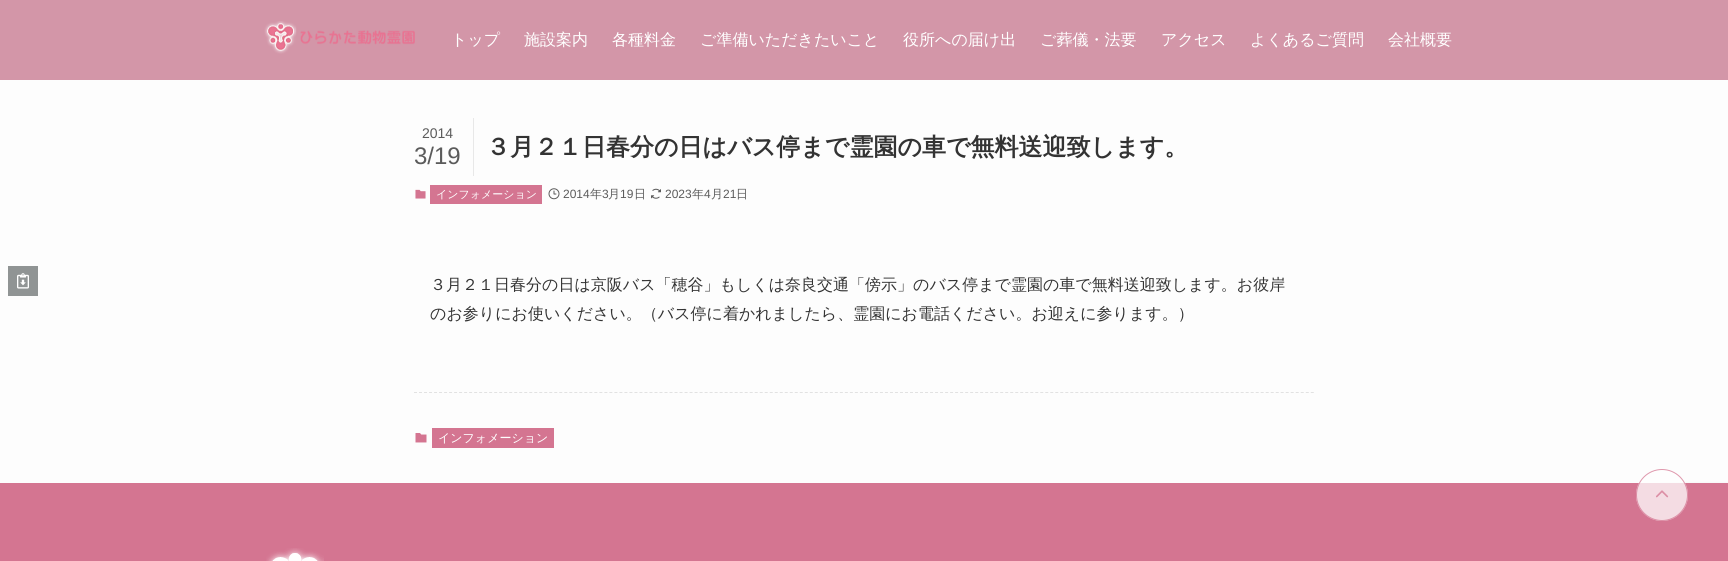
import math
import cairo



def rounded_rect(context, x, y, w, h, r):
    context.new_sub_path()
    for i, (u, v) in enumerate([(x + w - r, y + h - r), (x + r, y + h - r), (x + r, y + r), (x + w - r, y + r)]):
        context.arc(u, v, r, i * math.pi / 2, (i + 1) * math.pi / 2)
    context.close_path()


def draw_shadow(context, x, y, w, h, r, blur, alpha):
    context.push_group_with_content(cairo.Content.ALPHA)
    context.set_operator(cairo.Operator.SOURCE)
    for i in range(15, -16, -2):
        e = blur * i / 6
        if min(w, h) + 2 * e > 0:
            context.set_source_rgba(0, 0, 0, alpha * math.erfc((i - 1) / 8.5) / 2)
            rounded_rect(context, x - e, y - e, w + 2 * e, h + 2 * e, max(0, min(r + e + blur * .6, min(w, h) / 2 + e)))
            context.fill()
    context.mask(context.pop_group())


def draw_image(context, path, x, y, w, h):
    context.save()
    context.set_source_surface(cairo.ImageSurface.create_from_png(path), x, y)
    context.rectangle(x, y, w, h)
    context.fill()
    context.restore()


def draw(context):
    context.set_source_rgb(253 / 255, 253 / 255, 253 / 255)
    context.paint()
    context.set_source_rgb(211 / 255, 150 / 255, 168 / 255)
    context.rectangle(0, 0, 1728, 80)
    context.fill()
    draw_image(context, "images/1.png", 264, 21, 151, 33)
    context.set_source_rgb(232 / 255, 232 / 255, 232 / 255)
    context.rectangle(473, 118, 1, 58)
    context.fill()
    draw_image(context, "images/2.png", 415, 189, 11, 10)
    context.set_source_rgb(212 / 255, 117 / 255, 145 / 255)
    context.rectangle(430, 185, 112, 19)
    context.fill()
    draw_image(context, "images/3.png", 548, 188, 12, 12)
    draw_image(context, "images/4.png", 651, 188, 10, 11)
    context.set_source_rgb(144 / 255, 148 / 255, 148 / 255)
    context.rectangle(8, 266, 30, 30)
    context.fill()
    draw_image(context, "images/5.png", 17, 273, 12, 16)
    context.new_path()
    context.move_to(414, 392.5)
    context.line_to(1314, 392.5)
    context.set_source_rgb(226 / 255, 226 / 255, 226 / 255)
    context.set_line_width(1)
    context.set_dash([3, 2.01])
    context.stroke()
    draw_image(context, "images/6.png", 415, 433, 12, 10)
    context.set_source_rgb(212 / 255, 117 / 255, 145 / 255)
    context.rectangle(432, 428, 122, 20)
    context.fill()
    context.set_source_rgb(128 / 255, 128 / 255, 128 / 255)
    draw_shadow(context, 1658, 487, 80, 60, 2, 2.5, 1)
    context.set_source_rgb(212 / 255, 117 / 255, 145 / 255)
    context.rectangle(0, 483, 1728, 78)
    context.fill()
    context.set_source_rgba(1, 1, 1, 0.75)
    context.arc(1662, 495, 26, 0, 2 * math.pi)
    context.fill()
    context.arc(1662, 495, 25.5, 0, 2 * math.pi)
    context.set_source_rgba(212 / 255, 117 / 255, 145 / 255, 0.75)
    context.set_dash([])
    context.stroke()
    draw_image(context, "images/7.png", 1656, 490, 13, 8)
    draw_image(context, "images/8.png", 266, 548, 58, 13)
    context.select_font_face("WenQuanYi Zen Hei Medium")
    context.set_font_size(16)
    context.set_source_rgb(1, 1, 1)
    context.move_to(451, 45)
    context.show_text("トップ")
    context.move_to(524, 45)
    context.show_text("施設案内")
    context.move_to(612, 45)
    context.show_text("各種料金")
    context.move_to(700, 45)
    context.show_text("ご準備いただきたいこと")
    context.move_to(903, 45)
    context.show_text("役所への届け出")
    context.move_to(1040, 45)
    context.show_text("ご葬儀・法要")
    context.move_to(1161, 45)
    context.show_text("アクセス")
    context.move_to(1250, 45)
    context.show_text("よくあるご質問")
    context.move_to(1388, 45)
    context.show_text("会社概要")
    context.select_font_face("Liberation Sans")
    context.set_font_size(14)
    context.set_source_rgb(91 / 255, 91 / 255, 91 / 255)
    context.move_to(422, 138)
    context.show_text("2014")
    context.set_font_size(24)
    context.move_to(414, 164)
    context.show_text("3/19")
    context.select_font_face("WenQuanYi Zen Hei", cairo.FontSlant.NORMAL, cairo.FontWeight.BOLD)
    context.set_source_rgb(51 / 255, 51 / 255, 51 / 255)
    context.move_to(486, 155)
    context.show_text("３月２１日春分の日はバス停まで霊園の車で無料送迎致します。")
    context.select_font_face("WenQuanYi Zen Hei Medium")
    context.set_font_size(11)
    context.set_source_rgb(1, 1, 1)
    context.move_to(436, 198)
    context.show_text("インフォメーション")
    context.select_font_face("Liberation Sans")
    context.set_font_size(12)
    context.set_source_rgb(91 / 255, 91 / 255, 91 / 255)
    context.move_to(563, 198)
    context.show_text("2014")
    context.select_font_face("WenQuanYi Zen Hei Medium")
    context.move_to(590, 198)
    context.show_text("年")
    context.select_font_face("Liberation Sans")
    context.move_to(602, 198)
    context.show_text("3")
    context.select_font_face("WenQuanYi Zen Hei Medium")
    context.move_to(608, 198)
    context.show_text("月")
    context.select_font_face("Liberation Sans")
    context.move_to(620, 198)
    context.show_text("19")
    context.select_font_face("WenQuanYi Zen Hei Medium")
    context.move_to(634, 198)
    context.show_text("日")
    context.select_font_face("Liberation Sans")
    context.move_to(665, 198)
    context.show_text("2023")
    context.select_font_face("WenQuanYi Zen Hei Medium")
    context.move_to(692, 198)
    context.show_text("年")
    context.select_font_face("Liberation Sans")
    context.move_to(704, 198)
    context.show_text("4")
    context.select_font_face("WenQuanYi Zen Hei Medium")
    context.move_to(711, 198)
    context.show_text("月")
    context.select_font_face("Liberation Sans")
    context.move_to(723, 198)
    context.show_text("21")
    context.select_font_face("WenQuanYi Zen Hei Medium")
    context.move_to(736, 198)
    context.show_text("日")
    context.set_font_size(16)
    context.set_source_rgb(51 / 255, 51 / 255, 51 / 255)
    context.move_to(430, 290)
    context.show_text("３月２１日春分の日は京阪バス「穂谷」もしくは奈良交通「傍示」のバス停まで霊園の車で無料送迎致します。お彼岸")
    context.move_to(430, 319)
    context.show_text("のお参りにお使いください。（バス停に着かれましたら、霊園にお電話ください。お迎えに参ります。）")
    context.set_font_size(12)
    context.set_source_rgb(1, 1, 1)
    context.move_to(438, 442)
    context.show_text("インフォメーション")


surface = cairo.ImageSurface(cairo.Format.RGB24, 1728, 561)
context = cairo.Context(surface)
options = cairo.FontOptions()
options.set_hint_metrics(cairo.HintMetrics.OFF)
options.set_hint_style(cairo.HintStyle.NONE)
context.set_font_options(options)
context.set_miter_limit(4)
draw(context)
surface.write_to_png("out.png")
